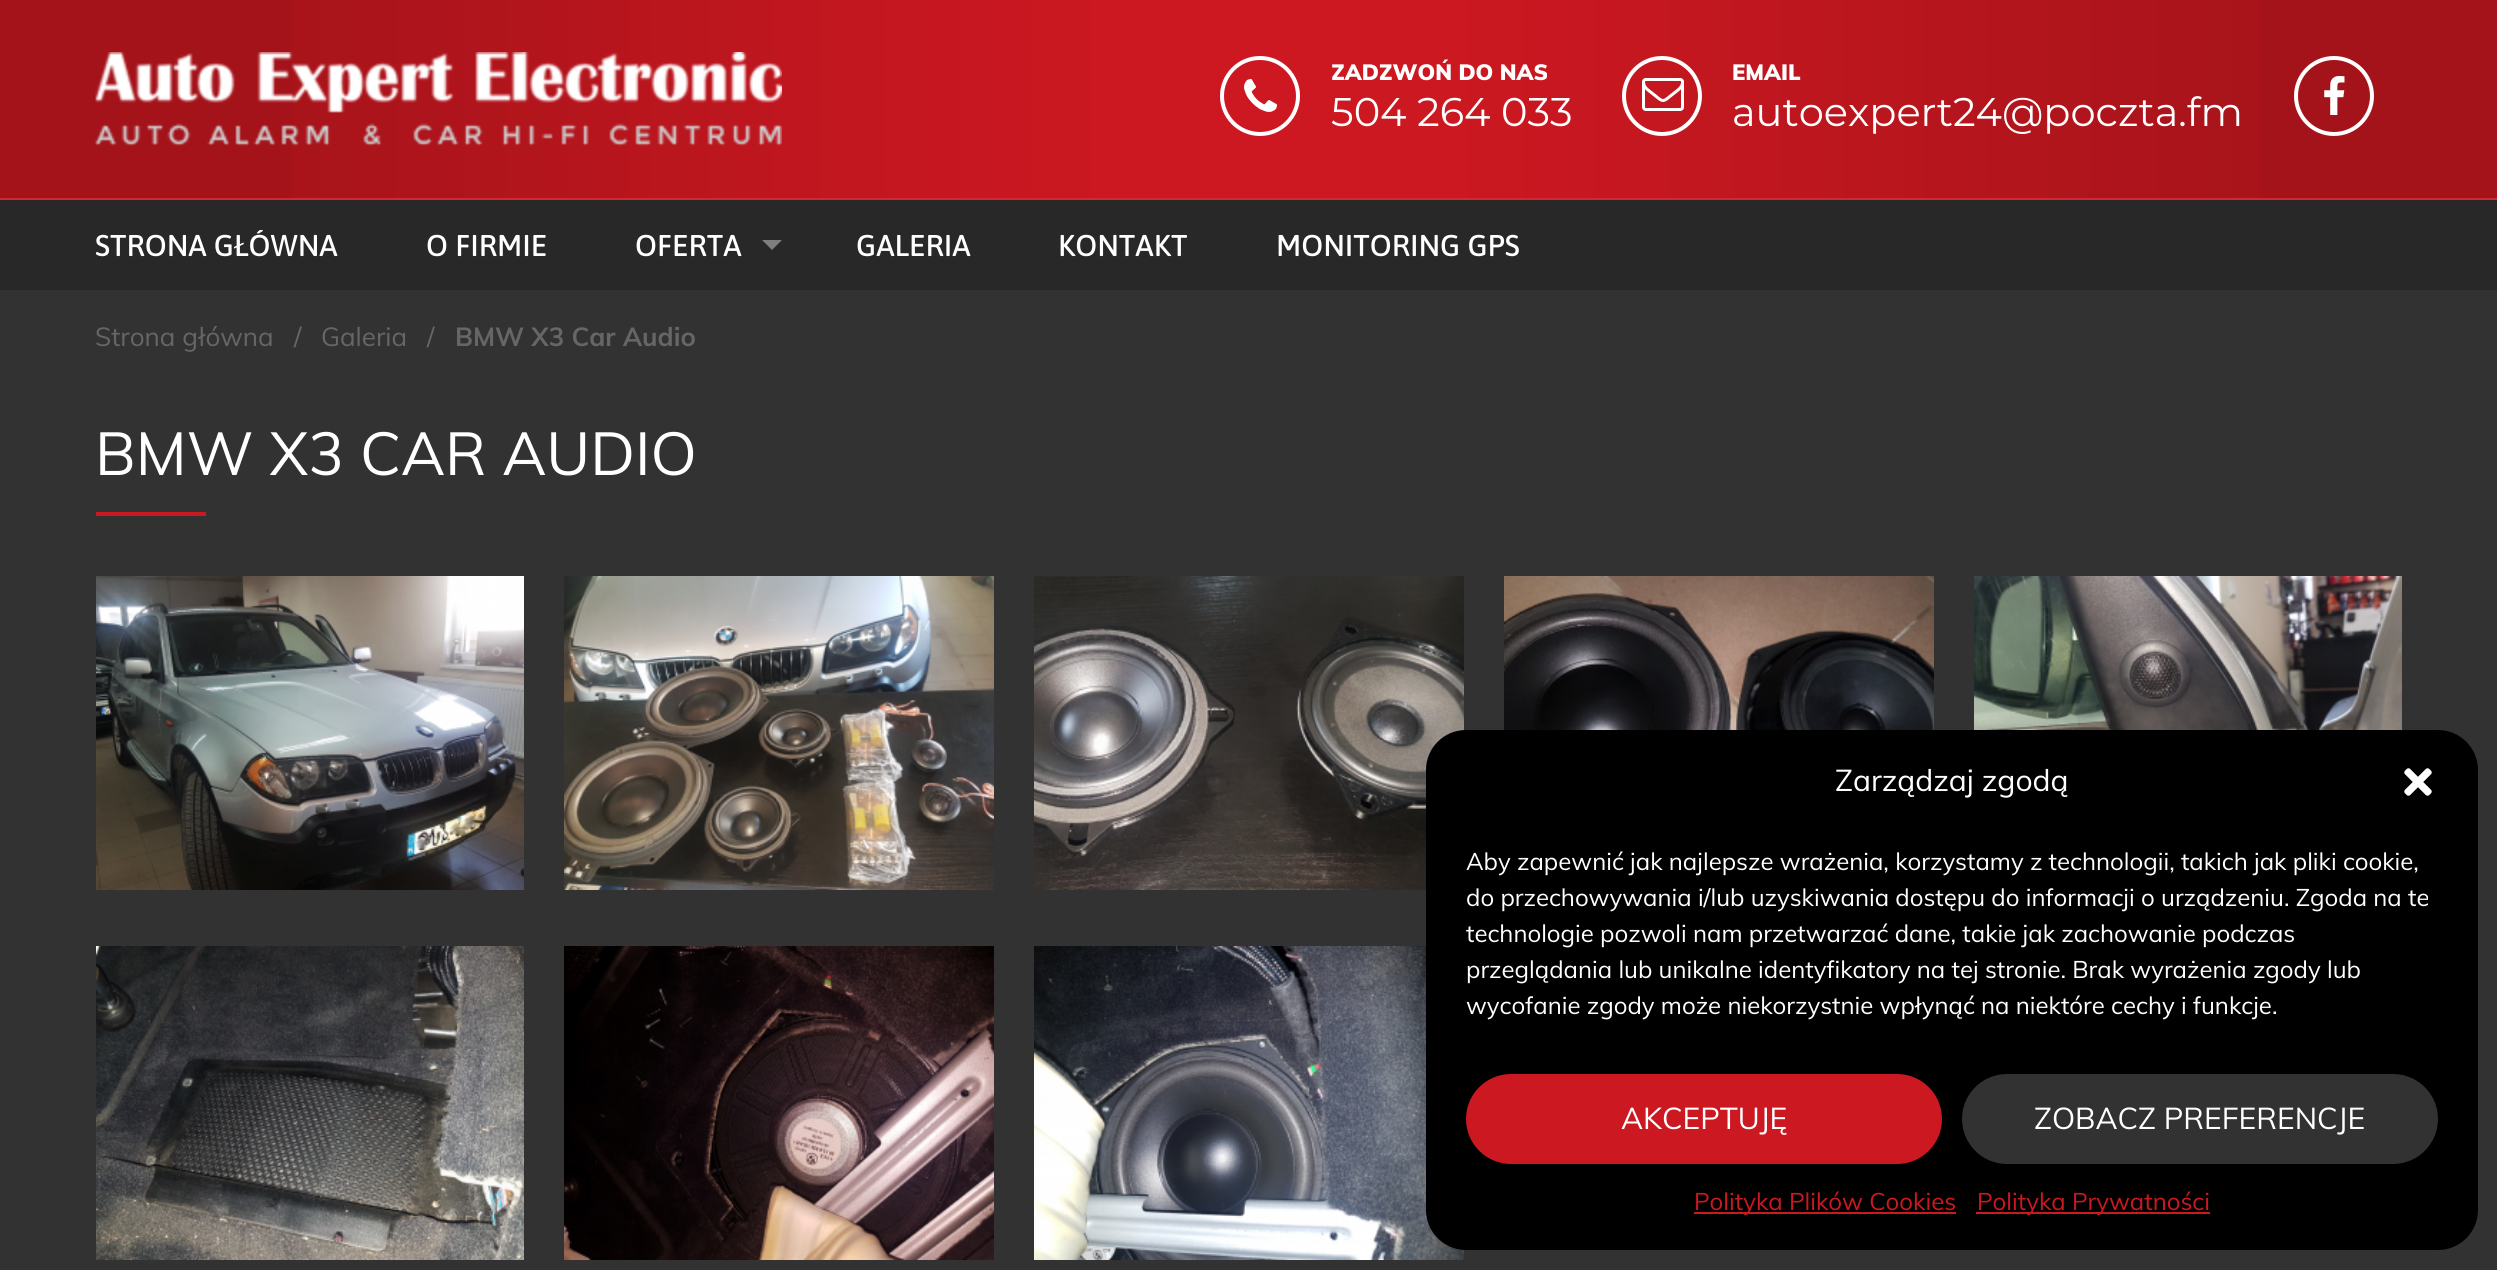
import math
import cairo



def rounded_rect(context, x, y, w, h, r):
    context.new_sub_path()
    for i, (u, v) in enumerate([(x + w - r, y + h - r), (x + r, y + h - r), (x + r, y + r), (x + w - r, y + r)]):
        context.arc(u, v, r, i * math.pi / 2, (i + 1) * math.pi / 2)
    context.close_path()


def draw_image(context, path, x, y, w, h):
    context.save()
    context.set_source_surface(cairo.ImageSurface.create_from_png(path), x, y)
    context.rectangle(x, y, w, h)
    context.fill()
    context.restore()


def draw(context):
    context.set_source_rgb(164 / 255, 19 / 255, 26 / 255)
    context.paint()
    draw_image(context, "images/1.png", 292, 0, 1968, 198)
    context.set_source_rgb(210 / 255, 40 / 255, 49 / 255)
    context.rectangle(0, 198, 2497, 2)
    context.fill()
    draw_image(context, "images/2.png", 95, 52, 687, 94)
    context.arc(1260, 96, 38, 0, 2 * math.pi)
    context.set_source_rgb(1, 1, 1)
    context.set_line_width(4)
    context.stroke()
    draw_image(context, "images/3.png", 1244, 79, 33, 33)
    context.arc(1662, 96, 38, 0, 2 * math.pi)
    context.stroke()
    draw_image(context, "images/4.png", 1642, 78, 42, 33)
    context.arc(2334, 96, 38, 0, 2 * math.pi)
    context.stroke()
    draw_image(context, "images/5.png", 2324, 76, 21, 39)
    context.set_source_rgb(40 / 255, 40 / 255, 40 / 255)
    context.rectangle(0, 200, 2497, 90)
    context.fill()
    context.set_source_rgb(126 / 255, 126 / 255, 126 / 255)
    context.new_path()
    context.move_to(762, 240)
    context.line_to(782, 240)
    context.line_to(772, 250)
    context.close_path()
    context.fill()
    context.set_source_rgb(50 / 255, 50 / 255, 50 / 255)
    context.rectangle(0, 290, 2497, 980)
    context.fill()
    context.set_source_rgb(204 / 255, 24 / 255, 33 / 255)
    context.rectangle(96, 512, 110, 4)
    context.fill()
    draw_image(context, "images/6.png", 96, 576, 428, 314)
    draw_image(context, "images/7.png", 564, 576, 430, 314)
    draw_image(context, "images/8.png", 1034, 576, 430, 314)
    draw_image(context, "images/9.png", 1504, 576, 430, 154)
    draw_image(context, "images/10.png", 1974, 576, 428, 154)
    draw_image(context, "images/11.png", 96, 946, 428, 314)
    draw_image(context, "images/12.png", 564, 946, 430, 314)
    draw_image(context, "images/13.png", 1034, 946, 430, 314)
    context.set_source_rgb(0, 0, 0)
    rounded_rect(context, 1426, 730, 1052, 520, 40)
    context.fill()
    draw_image(context, "images/14.png", 2404, 768, 28, 28)
    context.set_source_rgb(204 / 255, 24 / 255, 33 / 255)
    rounded_rect(context, 1467, 1075, 474, 88, 44)
    context.fill_preserve()
    context.set_line_width(2)
    context.stroke()
    context.set_source_rgb(50 / 255, 50 / 255, 50 / 255)
    rounded_rect(context, 1963, 1075, 474, 88, 44)
    context.fill_preserve()
    context.stroke()
    context.set_source_rgb(204 / 255, 24 / 255, 33 / 255)
    context.rectangle(1694, 1212, 262, 2)
    context.fill()
    context.rectangle(1976, 1212, 234, 2)
    context.fill()
    context.select_font_face("Muli Black")
    context.set_font_size(22)
    context.set_source_rgb(1, 1, 1)
    context.move_to(1331, 80)
    context.show_text("ZADZWOŃ DO NAS")
    context.select_font_face("Montserrat")
    context.set_font_size(40)
    context.move_to(1331, 126)
    context.show_text("504 264 033")
    context.select_font_face("Muli Black")
    context.set_font_size(22)
    context.move_to(1732, 80)
    context.show_text("EMAIL")
    context.select_font_face("Montserrat")
    context.set_font_size(40)
    context.move_to(1732, 126)
    context.show_text("autoexpert24@poczta.fm")
    context.select_font_face("Asap Medium")
    context.set_font_size(30)
    context.move_to(95, 256)
    context.show_text("STRONA GŁÓWNA")
    context.move_to(426, 256)
    context.show_text("O FIRMIE")
    context.move_to(635, 256)
    context.show_text("OFERTA")
    context.move_to(856, 256)
    context.show_text("GALERIA")
    context.move_to(1058, 256)
    context.show_text("KONTAKT")
    context.move_to(1276, 256)
    context.show_text("MONITORING GPS")
    context.select_font_face("Muli")
    context.set_font_size(26)
    context.set_source_rgb(102 / 255, 102 / 255, 102 / 255)
    context.move_to(95, 346)
    context.show_text("Strona główna")
    context.move_to(294, 346)
    context.show_text("/")
    context.move_to(321, 346)
    context.show_text("Galeria")
    context.move_to(427, 346)
    context.show_text("/")
    context.select_font_face("Muli", cairo.FontSlant.NORMAL, cairo.FontWeight.BOLD)
    context.move_to(455, 346)
    context.show_text("BMW X3 Car Audio")
    context.select_font_face("Muli")
    context.set_font_size(60)
    context.set_source_rgb(1, 1, 1)
    context.move_to(95, 475)
    context.show_text("BMW X3 CAR AUDIO")
    context.set_font_size(30)
    context.move_to(1835, 791)
    context.show_text("Zarządzaj zgodą")
    context.set_font_size(24)
    context.move_to(1466, 870)
    context.show_text("Aby zapewnić jak najlepsze wrażenia, korzystamy z technologii, takich jak pliki cookie,")
    context.move_to(1466, 906)
    context.show_text("do przechowywania i/lub uzyskiwania dostępu do informacji o urządzeniu. Zgoda na te")
    context.move_to(1466, 942)
    context.show_text("technologie pozwoli nam przetwarzać dane, takie jak zachowanie podczas")
    context.move_to(1466, 978)
    context.show_text("przeglądania lub unikalne identyfikatory na tej stronie. Brak wyrażenia zgody lub")
    context.move_to(1466, 1014)
    context.show_text("wycofanie zgody może niekorzystnie wpłynąć na niektóre cechy i funkcje.")
    context.set_font_size(30)
    context.move_to(1621, 1129)
    context.show_text("AKCEPTUJĘ")
    context.move_to(2034, 1129)
    context.show_text("ZOBACZ PREFERENCJE")
    context.set_font_size(24)
    context.set_source_rgb(204 / 255, 24 / 255, 33 / 255)
    context.move_to(1694, 1210)
    context.show_text("Polityka Plików Cookies")
    context.move_to(1977, 1210)
    context.show_text("Polityka Prywatności")


surface = cairo.ImageSurface(cairo.Format.RGB24, 2497, 1270)
context = cairo.Context(surface)
options = cairo.FontOptions()
options.set_hint_metrics(cairo.HintMetrics.OFF)
options.set_hint_style(cairo.HintStyle.NONE)
context.set_font_options(options)
context.set_miter_limit(4)
draw(context)
surface.write_to_png("out.png")
